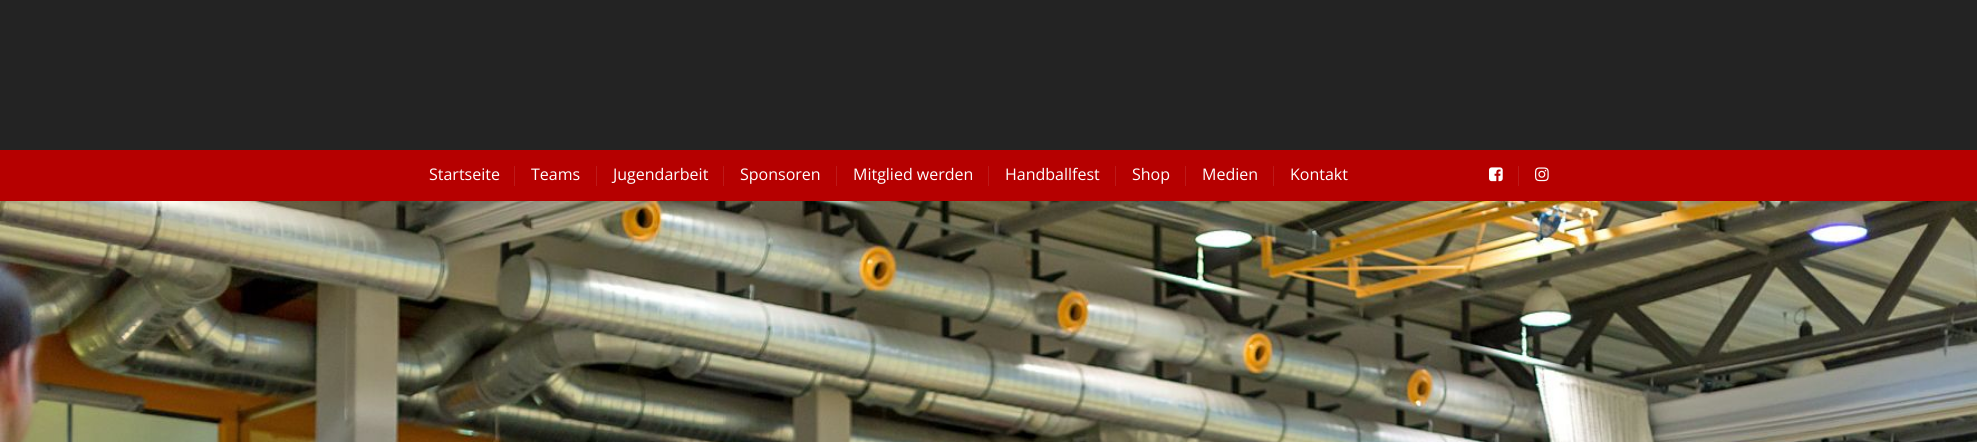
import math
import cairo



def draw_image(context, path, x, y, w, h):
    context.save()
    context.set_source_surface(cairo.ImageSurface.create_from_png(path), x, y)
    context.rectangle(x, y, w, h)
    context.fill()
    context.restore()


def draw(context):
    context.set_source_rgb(35 / 255, 35 / 255, 35 / 255)
    context.paint()
    context.set_source_rgb(182 / 255, 0, 0)
    context.rectangle(0, 150, 1977, 51)
    context.fill()
    context.set_source_rgb(189 / 255, 26 / 255, 26 / 255)
    context.rectangle(514, 166, 1, 20)
    context.fill()
    context.rectangle(596, 166, 1, 20)
    context.fill()
    context.rectangle(723, 166, 1, 20)
    context.fill()
    context.rectangle(836, 166, 1, 20)
    context.fill()
    context.rectangle(988, 166, 1, 20)
    context.fill()
    context.rectangle(1115, 166, 1, 20)
    context.fill()
    context.rectangle(1185, 166, 1, 20)
    context.fill()
    context.rectangle(1273, 166, 1, 20)
    context.fill()
    draw_image(context, "images/1.png", 1489, 167, 14, 15)
    context.rectangle(1518, 166, 1, 20)
    context.fill()
    draw_image(context, "images/2.png", 1535, 167, 14, 15)
    draw_image(context, "images/3.png", 0, 201, 1977, 241)
    context.select_font_face("Open Sans")
    context.set_font_size(16)
    context.set_source_rgb(1, 1, 1)
    context.move_to(429, 180)
    context.show_text("Startseite")
    context.move_to(531, 180)
    context.show_text("Teams")
    context.move_to(613, 180)
    context.show_text("Jugendarbeit")
    context.move_to(740, 180)
    context.show_text("Sponsoren")
    context.move_to(853, 180)
    context.show_text("Mitglied werden")
    context.move_to(1005, 180)
    context.show_text("Handballfest")
    context.move_to(1132, 180)
    context.show_text("Shop")
    context.move_to(1202, 180)
    context.show_text("Medien")
    context.move_to(1290, 180)
    context.show_text("Kontakt")


surface = cairo.ImageSurface(cairo.Format.RGB24, 1977, 442)
context = cairo.Context(surface)
options = cairo.FontOptions()
options.set_hint_metrics(cairo.HintMetrics.OFF)
options.set_hint_style(cairo.HintStyle.NONE)
context.set_font_options(options)
context.set_miter_limit(4)
draw(context)
surface.write_to_png("out.png")
